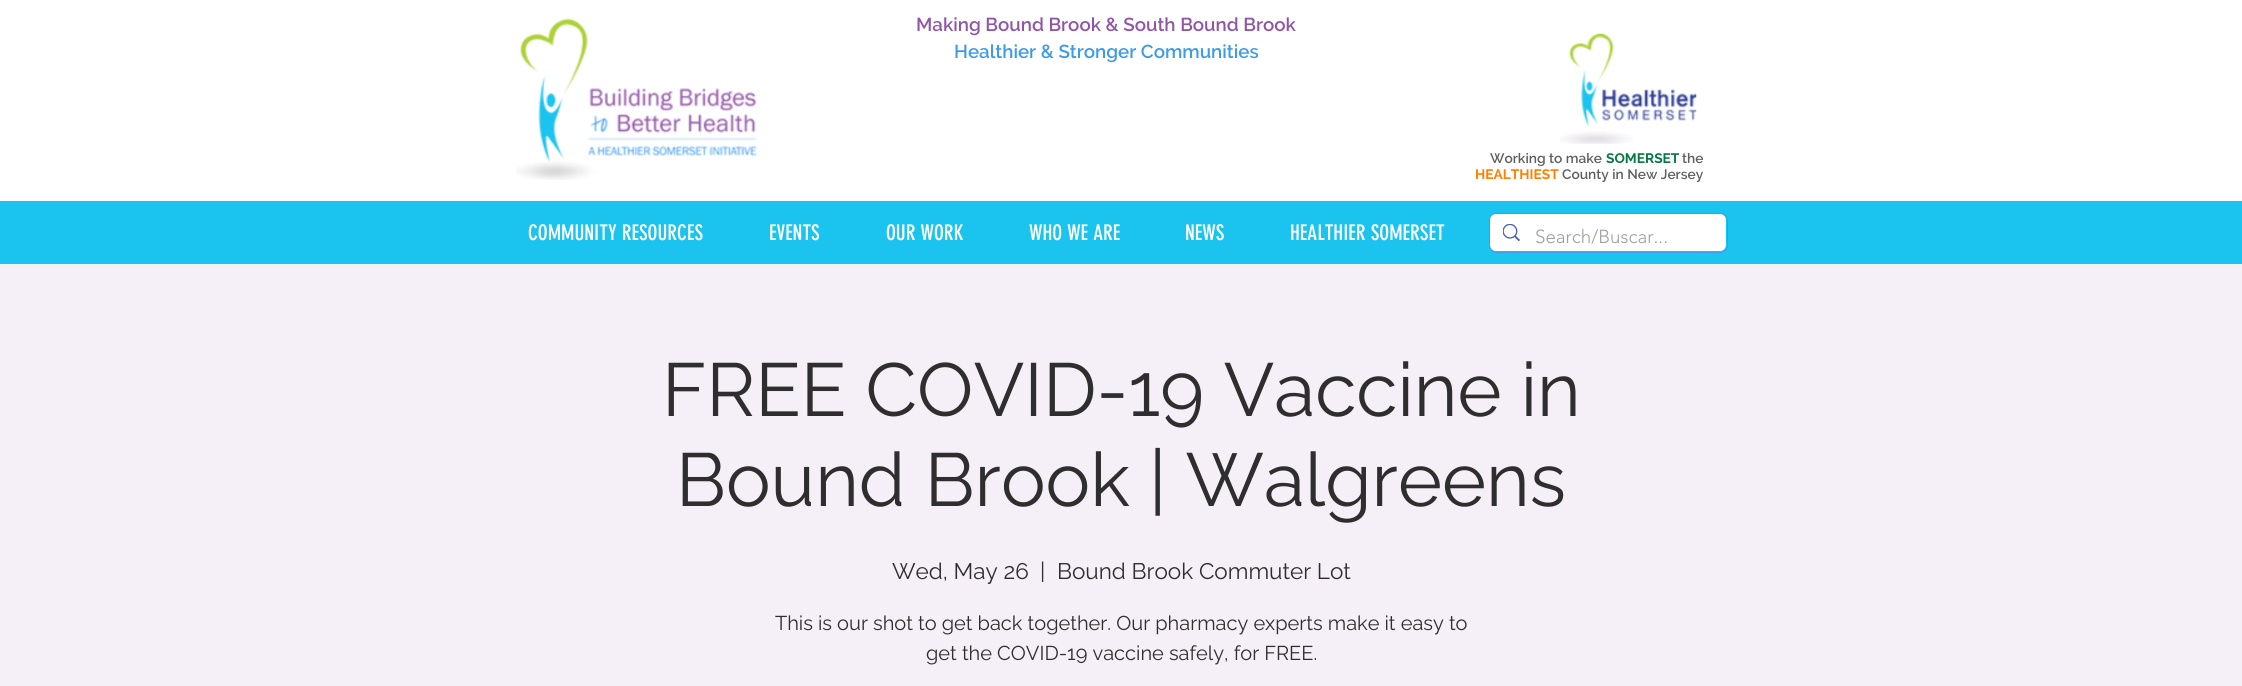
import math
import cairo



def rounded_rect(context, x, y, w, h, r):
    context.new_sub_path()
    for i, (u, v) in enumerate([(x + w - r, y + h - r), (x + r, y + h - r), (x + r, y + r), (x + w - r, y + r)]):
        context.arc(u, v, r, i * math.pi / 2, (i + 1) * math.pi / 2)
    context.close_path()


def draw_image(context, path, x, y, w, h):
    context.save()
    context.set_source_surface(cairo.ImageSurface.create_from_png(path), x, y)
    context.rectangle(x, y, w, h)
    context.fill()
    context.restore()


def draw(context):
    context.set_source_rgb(1, 1, 1)
    context.paint()
    draw_image(context, "images/1.png", 516, 18, 241, 162)
    draw_image(context, "images/2.png", 1560, 33, 137, 111)
    context.set_source_rgb(27 / 255, 195 / 255, 239 / 255)
    context.rectangle(0, 201, 2242, 63)
    context.fill()
    rounded_rect(context, 1489.5, 213.5, 238, 39, 7.5)
    context.set_source_rgb(61 / 255, 155 / 255, 233 / 255)
    context.set_line_width(1)
    context.stroke()
    context.set_source_rgb(1, 1, 1)
    rounded_rect(context, 1490, 214, 236, 37, 6)
    context.fill()
    draw_image(context, "images/3.png", 1503, 224, 17, 17)
    context.set_source_rgb(245 / 255, 239 / 255, 247 / 255)
    context.rectangle(0, 264, 2242, 422)
    context.fill()
    context.select_font_face("Raleway SemiBold")
    context.set_font_size(18.75)
    context.set_source_rgb(145 / 255, 85 / 255, 167 / 255)
    context.move_to(916, 31)
    context.show_text("Making Bound Brook & South Bound Brook")
    context.set_source_rgb(61 / 255, 155 / 255, 233 / 255)
    context.move_to(954, 58)
    context.show_text("Healthier & Stronger Communities")
    context.set_font_size(13.75)
    context.set_source_rgb(96 / 255, 94 / 255, 94 / 255)
    context.move_to(1490, 163)
    context.show_text("Working to make")
    context.select_font_face("Raleway", cairo.FontSlant.NORMAL, cairo.FontWeight.BOLD)
    context.set_source_rgb(9 / 255, 119 / 255, 71 / 255)
    context.move_to(1606, 163)
    context.show_text("SOMERSET")
    context.select_font_face("Raleway SemiBold")
    context.set_source_rgb(96 / 255, 94 / 255, 94 / 255)
    context.move_to(1682, 163)
    context.show_text("the")
    context.select_font_face("Raleway", cairo.FontSlant.NORMAL, cairo.FontWeight.BOLD)
    context.set_source_rgb(1, 128 / 255, 0)
    context.move_to(1475, 179)
    context.show_text("HEALTHIEST")
    context.select_font_face("Raleway SemiBold")
    context.set_source_rgb(96 / 255, 94 / 255, 94 / 255)
    context.move_to(1562, 179)
    context.show_text("County in New Jersey")
    context.select_font_face("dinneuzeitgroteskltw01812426")
    context.set_font_size(21.25)
    context.set_source_rgb(1, 1, 1)
    context.move_to(528, 240)
    context.show_text("COMMUNITY RESOURCES")
    context.move_to(769, 240)
    context.show_text("EVENTS")
    context.move_to(886, 240)
    context.show_text("OUR WORK")
    context.move_to(1029, 240)
    context.show_text("WHO WE ARE")
    context.move_to(1185, 240)
    context.show_text("NEWS")
    context.move_to(1290, 240)
    context.show_text("HEALTHIER SOMERSET")
    context.select_font_face("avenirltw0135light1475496 Light")
    context.set_font_size(18.75)
    context.set_source_rgb(160 / 255, 160 / 255, 159 / 255)
    context.move_to(1535, 243)
    context.show_text("Search/Buscar...")
    context.select_font_face("Raleway")
    context.set_font_size(75)
    context.set_source_rgb(47 / 255, 46 / 255, 46 / 255)
    context.move_to(662, 416)
    context.show_text("FREE COVID-19 Vaccine in")
    context.move_to(676, 506)
    context.show_text("Bound Brook | Walgreens")
    context.set_font_size(22.5)
    context.move_to(892, 579)
    context.show_text("Wed, May 26")
    context.move_to(1040, 579)
    context.show_text("|")
    context.move_to(1057, 579)
    context.show_text("Bound Brook Commuter Lot")
    context.set_font_size(20)
    context.move_to(775, 630)
    context.show_text("This is our shot to get back together. Our pharmacy experts make it easy to")
    context.move_to(926, 660)
    context.show_text("get the COVID-19 vaccine safely, for FREE.")


surface = cairo.ImageSurface(cairo.Format.RGB24, 2242, 686)
context = cairo.Context(surface)
options = cairo.FontOptions()
options.set_hint_metrics(cairo.HintMetrics.OFF)
options.set_hint_style(cairo.HintStyle.NONE)
context.set_font_options(options)
context.set_miter_limit(4)
draw(context)
surface.write_to_png("out.png")
